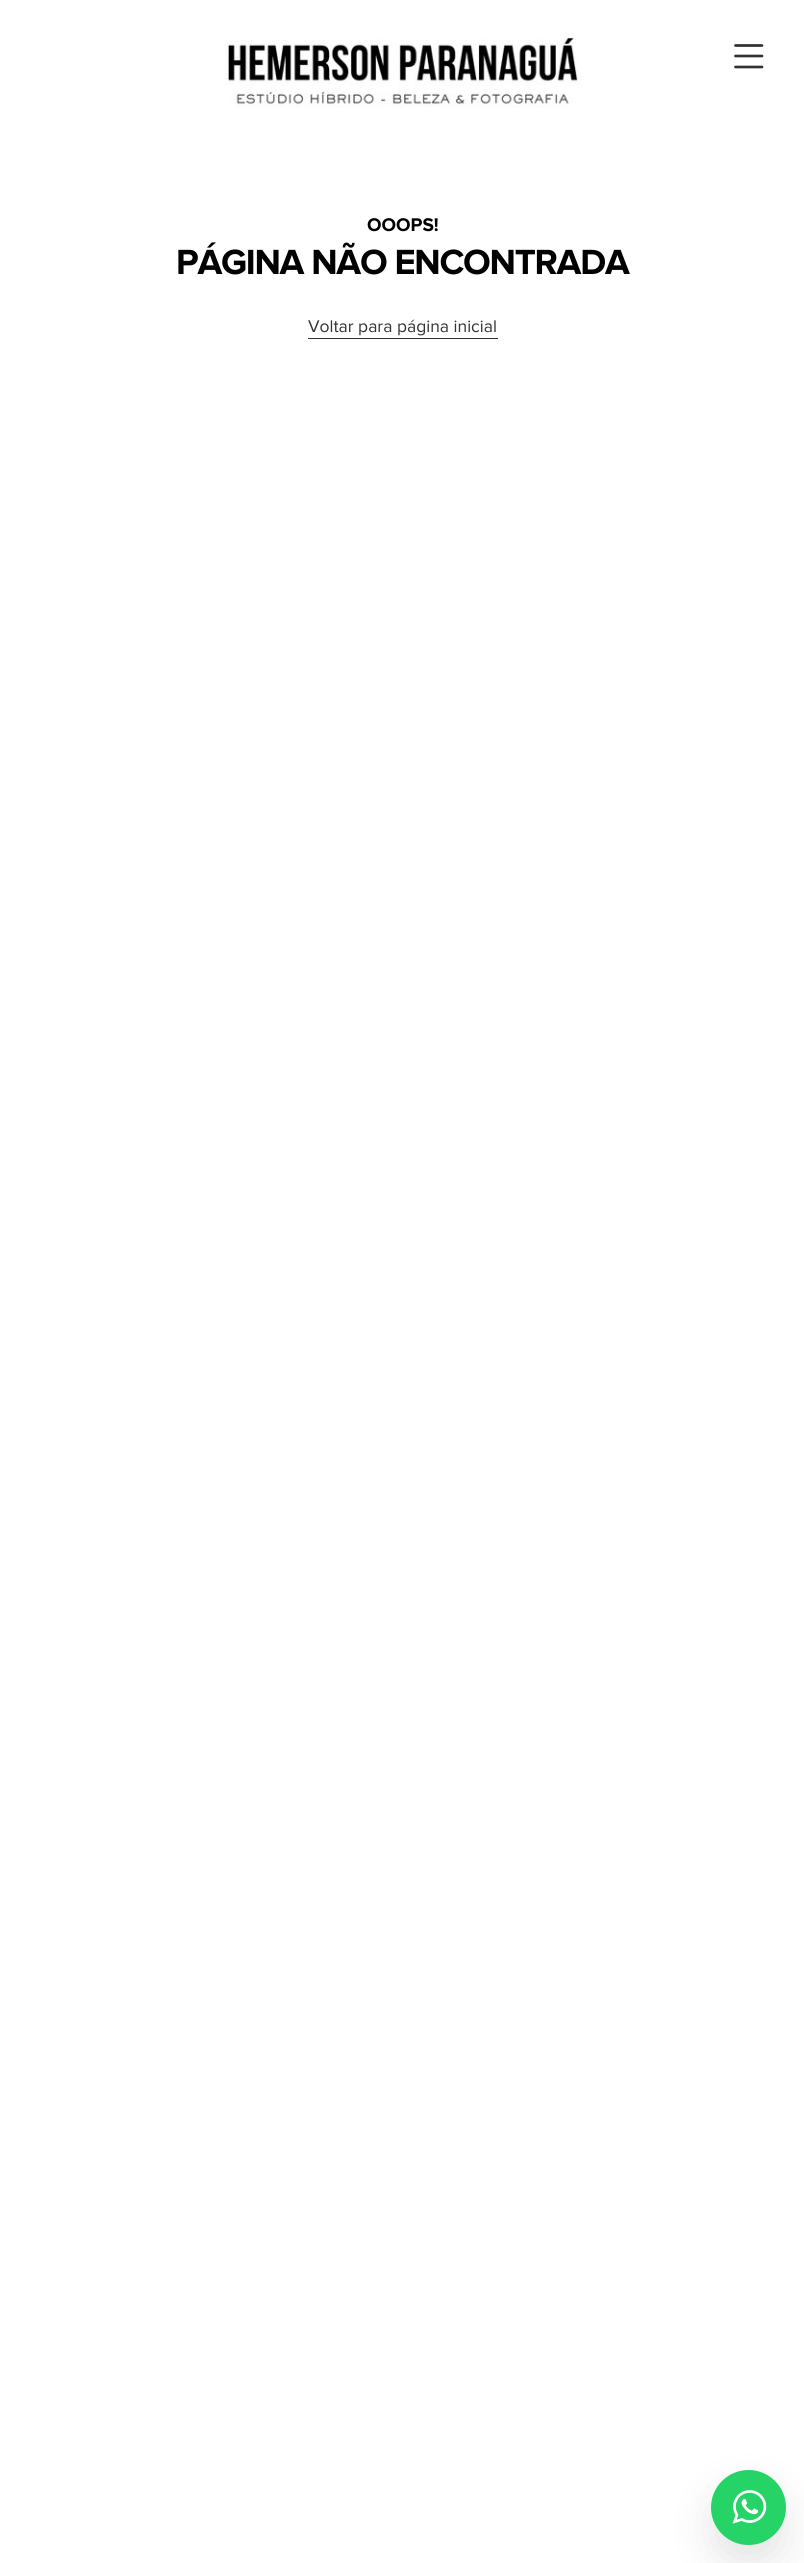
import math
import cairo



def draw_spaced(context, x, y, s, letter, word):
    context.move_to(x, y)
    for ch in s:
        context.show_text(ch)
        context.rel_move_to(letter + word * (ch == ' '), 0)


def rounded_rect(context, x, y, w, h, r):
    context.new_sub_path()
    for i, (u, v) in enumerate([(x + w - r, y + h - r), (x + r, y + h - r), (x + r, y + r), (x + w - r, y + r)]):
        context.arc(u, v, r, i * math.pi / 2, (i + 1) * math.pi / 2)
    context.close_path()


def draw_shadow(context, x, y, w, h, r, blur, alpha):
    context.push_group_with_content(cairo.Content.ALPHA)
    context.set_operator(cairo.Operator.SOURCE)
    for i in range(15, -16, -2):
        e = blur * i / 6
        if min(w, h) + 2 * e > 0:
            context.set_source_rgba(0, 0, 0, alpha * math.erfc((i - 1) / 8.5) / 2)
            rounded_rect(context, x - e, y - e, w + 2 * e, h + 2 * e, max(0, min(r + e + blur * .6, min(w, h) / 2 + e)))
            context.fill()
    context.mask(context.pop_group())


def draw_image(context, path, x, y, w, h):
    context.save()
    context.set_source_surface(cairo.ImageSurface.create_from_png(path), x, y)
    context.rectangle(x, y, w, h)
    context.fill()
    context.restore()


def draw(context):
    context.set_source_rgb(1, 1, 1)
    context.paint()
    draw_image(context, "images/1.png", 225, 33, 357, 75)
    context.new_path()
    context.move_to(735.5, 45.5)
    context.line_to(762, 45.5)
    context.move_to(735.5, 56)
    context.line_to(762, 56)
    context.move_to(735.5, 67)
    context.line_to(762, 67)
    context.set_source_rgb(50 / 255, 50 / 255, 50 / 255)
    context.set_line_width(2.7)
    context.set_line_cap(cairo.LineCap.ROUND)
    context.stroke()
    context.rectangle(308, 338, 190, 1)
    context.fill()
    context.set_source_rgb(0, 0, 0)
    draw_shadow(context, 711, 2490, 75, 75, 37.5, 20, 0.1)
    context.set_source_rgb(37 / 255, 211 / 255, 102 / 255)
    context.arc(748.5, 2507.5, 37.5, 0, 2 * math.pi)
    context.fill()
    draw_image(context, "images/2.png", 732, 2490, 35, 34)
    context.select_font_face("Proxima Nova", cairo.FontSlant.NORMAL, cairo.FontWeight.BOLD)
    context.set_font_size(19)
    context.set_source_rgb(0, 0, 0)
    context.move_to(367, 231)
    context.show_text("OOOPS!")
    context.set_font_size(36.25)
    draw_spaced(context, 176, 274, "PÁGINA NÃO ENCONTRADA", -1.25, 0)
    context.select_font_face("Proxima Nova")
    context.set_font_size(17.5)
    context.set_source_rgb(50 / 255, 50 / 255, 50 / 255)
    context.move_to(308, 332)
    context.show_text("Voltar para página inicial")


surface = cairo.ImageSurface(cairo.Format.RGB24, 804, 2563)
context = cairo.Context(surface)
options = cairo.FontOptions()
options.set_hint_metrics(cairo.HintMetrics.OFF)
options.set_hint_style(cairo.HintStyle.NONE)
context.set_font_options(options)
context.set_miter_limit(4)
draw(context)
surface.write_to_png("out.png")
